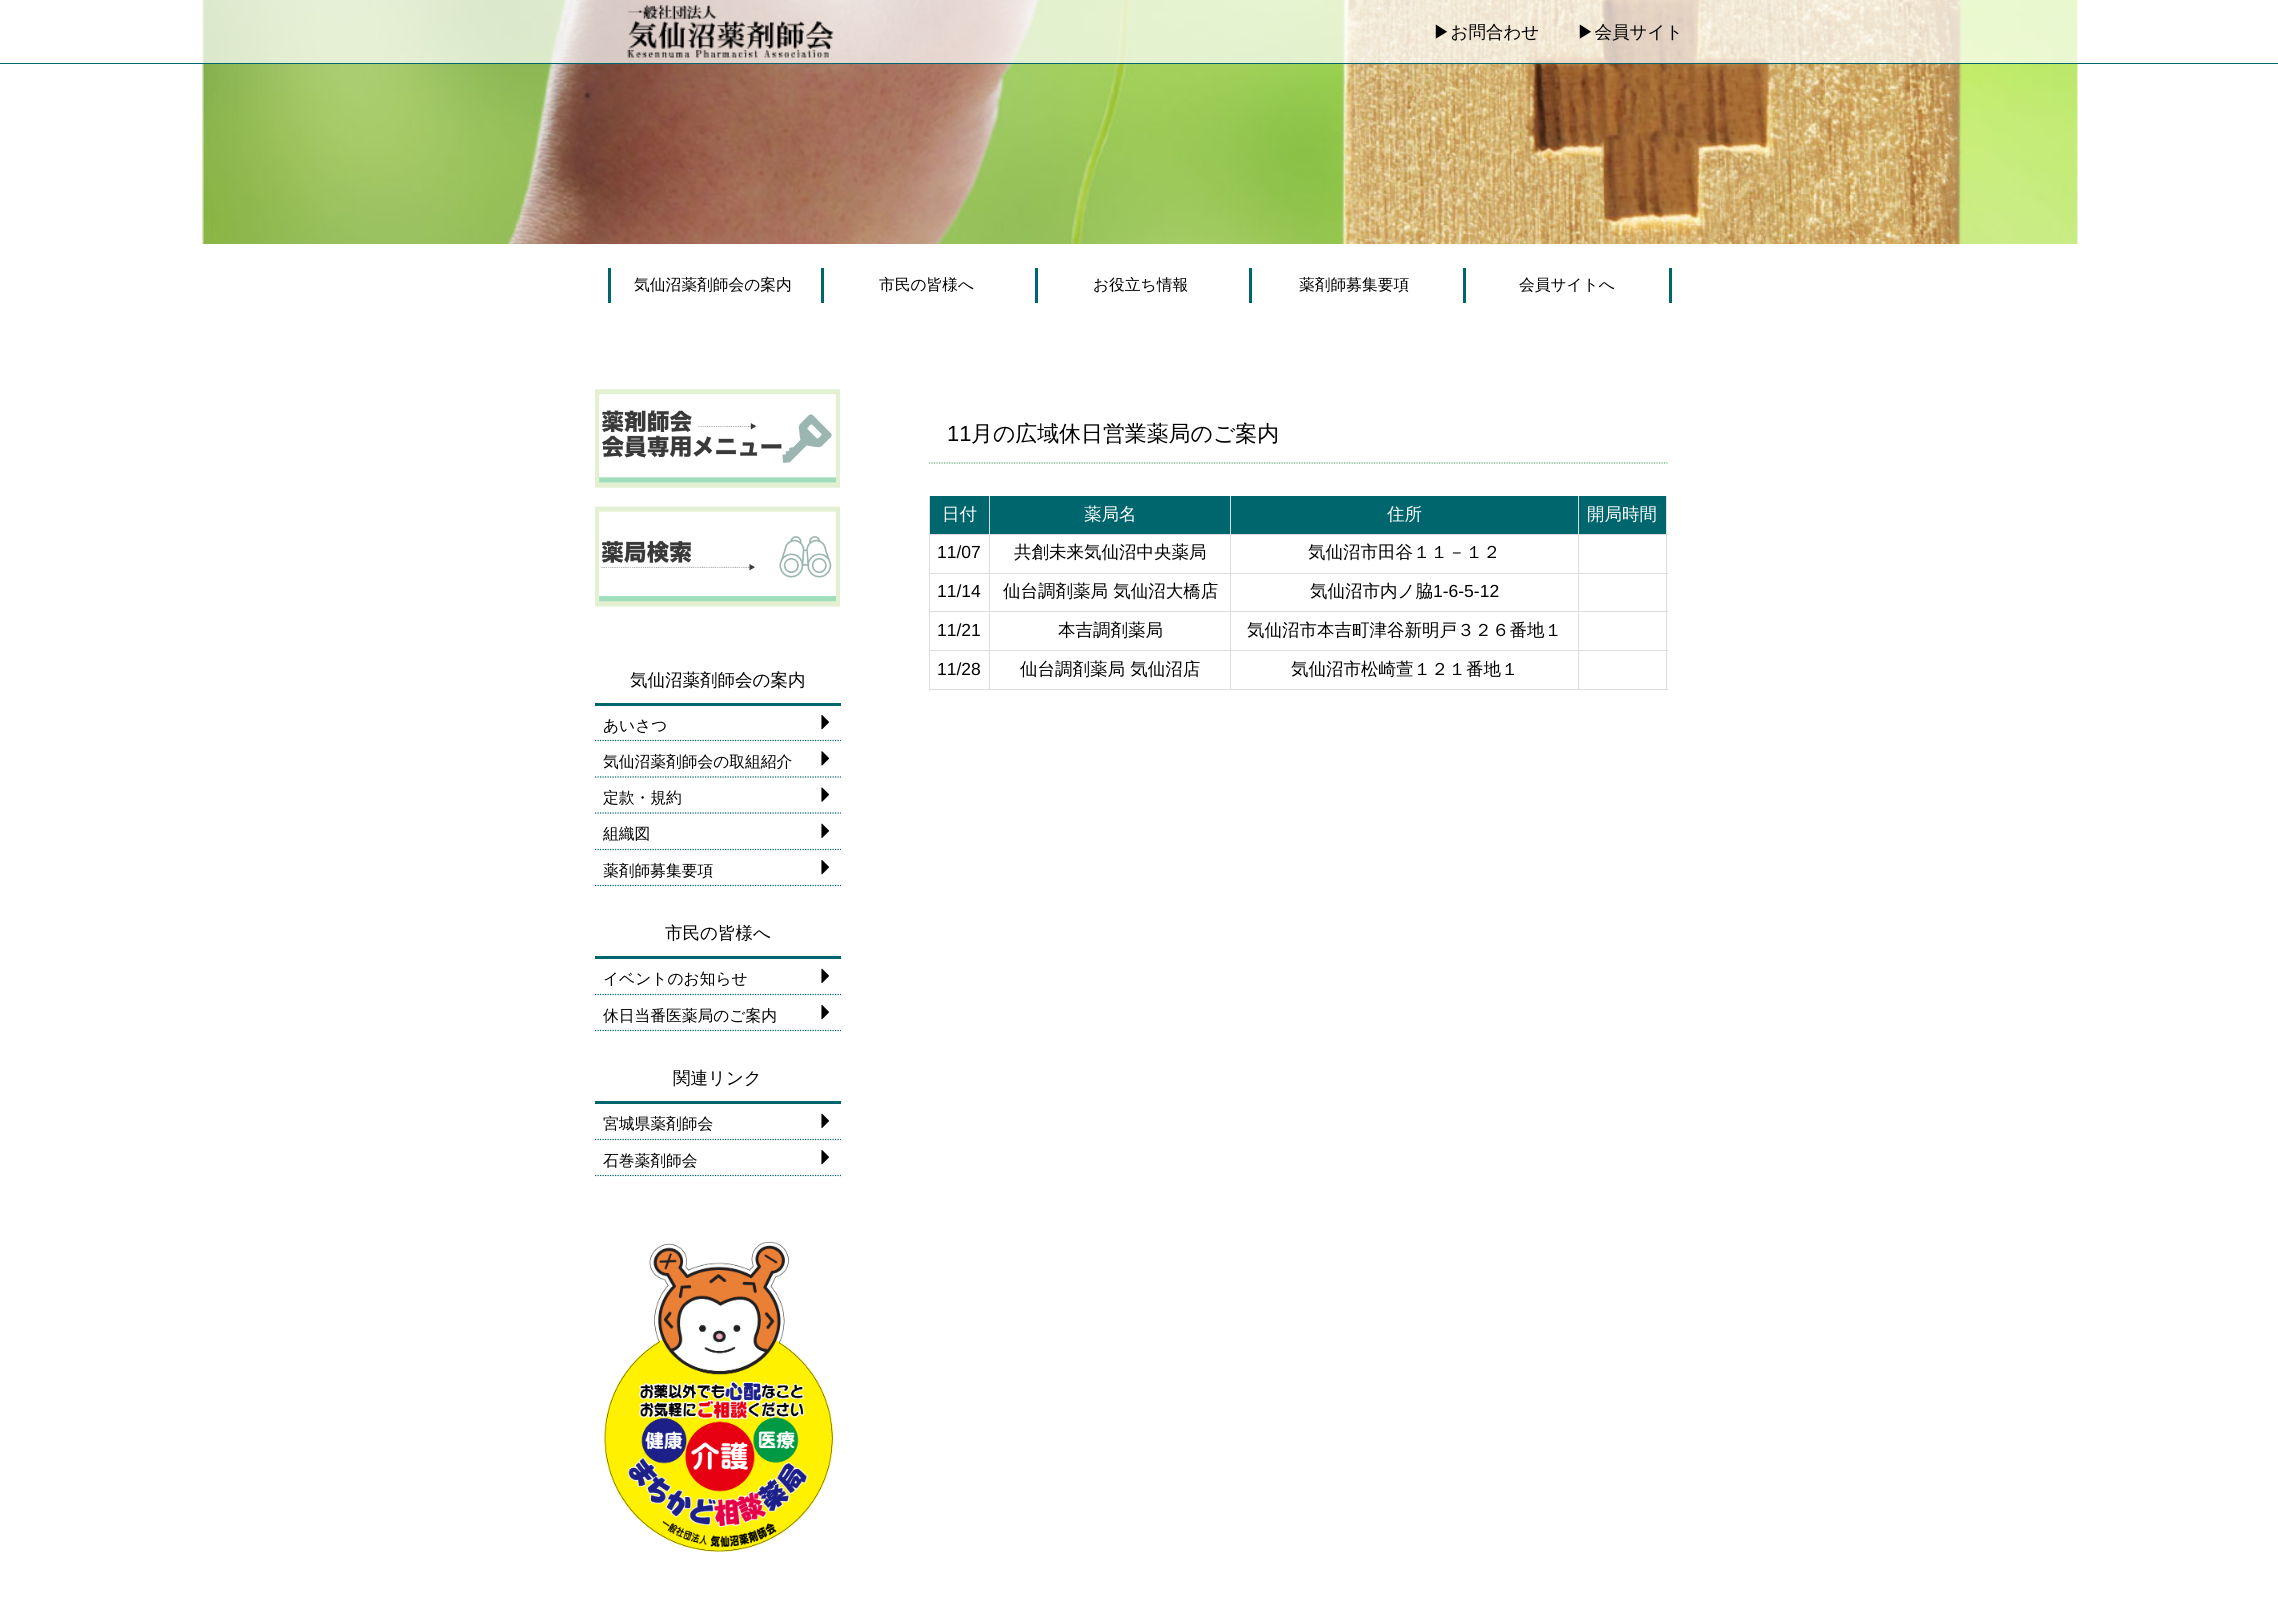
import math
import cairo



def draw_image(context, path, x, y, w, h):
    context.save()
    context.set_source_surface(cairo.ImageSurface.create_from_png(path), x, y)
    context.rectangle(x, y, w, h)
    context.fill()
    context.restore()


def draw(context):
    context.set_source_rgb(1, 1, 1)
    context.paint()
    draw_image(context, "images/1.png", 202, 0, 1876, 244)
    context.set_source_rgba(1, 1, 1, 0.7)
    context.rectangle(202, 0, 1876, 63)
    context.fill()
    context.set_source_rgb(0, 102 / 255, 110 / 255)
    context.rectangle(0, 63, 2278, 1)
    context.fill()
    draw_image(context, "images/2.png", 627, 4, 207, 54)
    context.rectangle(608, 268, 3, 35)
    context.fill()
    context.rectangle(821, 268, 3, 35)
    context.fill()
    context.rectangle(1035, 268, 3, 35)
    context.fill()
    context.rectangle(1249, 268, 3, 35)
    context.fill()
    context.rectangle(1669, 268, 3, 35)
    context.fill()
    context.rectangle(1463, 268, 3, 35)
    context.fill()
    context.new_path()
    context.move_to(929, 463)
    context.line_to(1667.5, 463)
    context.set_source_rgb(96 / 255, 172 / 255, 109 / 255)
    context.set_line_width(1.2)
    context.set_dash([1.25, 1.25])
    context.stroke()
    context.set_source_rgb(221 / 255, 221 / 255, 221 / 255)
    context.rectangle(929, 689, 739, 1)
    context.fill()
    context.rectangle(929, 496, 1, 194)
    context.fill()
    context.set_source_rgb(0, 102 / 255, 110 / 255)
    context.rectangle(930, 496, 59, 38)
    context.fill()
    context.rectangle(990, 496, 240, 38)
    context.fill()
    context.rectangle(1231, 496, 347, 38)
    context.fill()
    context.rectangle(1579, 496, 87, 38)
    context.fill()
    context.set_source_rgb(221 / 255, 221 / 255, 221 / 255)
    context.rectangle(929, 534, 739, 1)
    context.fill()
    context.rectangle(929, 573, 739, 1)
    context.fill()
    context.rectangle(929, 611, 739, 1)
    context.fill()
    context.rectangle(929, 650, 739, 1)
    context.fill()
    context.rectangle(1666, 650, 1, 40)
    context.fill()
    context.rectangle(1666, 611, 1, 40)
    context.fill()
    context.rectangle(1666, 573, 1, 40)
    context.fill()
    context.rectangle(1666, 496, 1, 78)
    context.fill()
    context.rectangle(989, 650, 1, 40)
    context.fill()
    context.rectangle(989, 611, 1, 40)
    context.fill()
    context.rectangle(989, 573, 1, 40)
    context.fill()
    context.rectangle(989, 496, 1, 78)
    context.fill()
    context.rectangle(1230, 650, 1, 40)
    context.fill()
    context.rectangle(1230, 611, 1, 40)
    context.fill()
    context.rectangle(1230, 573, 1, 40)
    context.fill()
    context.rectangle(1230, 496, 1, 78)
    context.fill()
    context.rectangle(1578, 650, 1, 40)
    context.fill()
    context.rectangle(1578, 611, 1, 40)
    context.fill()
    context.rectangle(1578, 573, 1, 40)
    context.fill()
    context.rectangle(1578, 496, 1, 78)
    context.fill()
    draw_image(context, "images/3.png", 595, 389, 245, 99)
    draw_image(context, "images/4.png", 595, 506, 245, 101)
    context.set_source_rgb(0, 102 / 255, 110 / 255)
    context.rectangle(595, 703, 246, 3)
    context.fill()
    context.new_path()
    context.move_to(595, 740.5)
    context.line_to(841, 740.5)
    context.stroke()
    draw_image(context, "images/5.png", 821, 714, 8, 16)
    context.new_path()
    context.move_to(595, 777)
    context.line_to(841, 777)
    context.stroke()
    draw_image(context, "images/6.png", 821, 751, 8, 15)
    context.new_path()
    context.move_to(595, 813)
    context.line_to(841, 813)
    context.stroke()
    draw_image(context, "images/7.png", 821, 787, 8, 15)
    context.new_path()
    context.move_to(595, 849.5)
    context.line_to(841, 849.5)
    context.stroke()
    draw_image(context, "images/8.png", 821, 823, 8, 16)
    context.new_path()
    context.move_to(595, 885.5)
    context.line_to(841, 885.5)
    context.stroke()
    draw_image(context, "images/5.png", 821, 859, 8, 16)
    context.rectangle(595, 956, 246, 3)
    context.fill()
    context.new_path()
    context.move_to(595, 994.5)
    context.line_to(841, 994.5)
    context.stroke()
    draw_image(context, "images/8.png", 821, 968, 8, 16)
    context.new_path()
    context.move_to(595, 1030.5)
    context.line_to(841, 1030.5)
    context.stroke()
    draw_image(context, "images/5.png", 821, 1004, 8, 16)
    context.rectangle(595, 1101, 246, 3)
    context.fill()
    context.new_path()
    context.move_to(595, 1139.5)
    context.line_to(841, 1139.5)
    context.stroke()
    draw_image(context, "images/8.png", 821, 1113, 8, 16)
    context.new_path()
    context.move_to(595, 1175.5)
    context.line_to(841, 1175.5)
    context.stroke()
    draw_image(context, "images/5.png", 821, 1149, 8, 16)
    draw_image(context, "images/9.png", 604, 1241, 230, 311)
    context.select_font_face("WenQuanYi Zen Hei Medium")
    context.set_font_size(17.5)
    context.set_source_rgb(0, 0, 0)
    context.move_to(1433, 38)
    context.show_text("▶お問合わせ")
    context.move_to(1577, 38)
    context.show_text("▶会員サイト")
    context.set_font_size(15.75)
    context.move_to(634, 290)
    context.show_text("気仙沼薬剤師会の案内")
    context.move_to(879, 290)
    context.show_text("市民の皆様へ")
    context.move_to(1093, 290)
    context.show_text("お役立ち情報")
    context.move_to(1299, 290)
    context.show_text("薬剤師募集要項")
    context.move_to(1519, 290)
    context.show_text("会員サイトへ")
    context.select_font_face("Liberation Sans")
    context.set_font_size(21.9)
    context.move_to(947, 441)
    context.show_text("11")
    context.select_font_face("WenQuanYi Zen Hei Medium")
    context.move_to(971, 441)
    context.show_text("月の広域休日営業薬局のご案内")
    context.set_font_size(17.5)
    context.set_source_rgb(1, 1, 1)
    context.move_to(942, 520)
    context.show_text("日付")
    context.move_to(1084, 520)
    context.show_text("薬局名")
    context.move_to(1387, 520)
    context.show_text("住所")
    context.move_to(1587, 520)
    context.show_text("開局時間")
    context.select_font_face("Liberation Sans")
    context.set_source_rgb(0, 0, 0)
    context.move_to(937, 558)
    context.show_text("11/07")
    context.select_font_face("WenQuanYi Zen Hei Medium")
    context.move_to(1014, 558)
    context.show_text("共創未来気仙沼中央薬局")
    context.move_to(1308, 558)
    context.show_text("気仙沼市田谷１１－１２")
    context.select_font_face("Liberation Sans")
    context.move_to(937, 597)
    context.show_text("11/14")
    context.select_font_face("WenQuanYi Zen Hei Medium")
    context.move_to(1003, 597)
    context.show_text("仙台調剤薬局 気仙沼大橋店")
    context.move_to(1310, 597)
    context.show_text("気仙沼市内ノ脇")
    context.select_font_face("Liberation Sans")
    context.move_to(1433, 597)
    context.show_text("1-6-5-12")
    context.move_to(937, 636)
    context.show_text("11/21")
    context.select_font_face("WenQuanYi Zen Hei Medium")
    context.move_to(1058, 636)
    context.show_text("本吉調剤薬局")
    context.move_to(1247, 636)
    context.show_text("気仙沼市本吉町津谷新明戸３２６番地１")
    context.select_font_face("Liberation Sans")
    context.move_to(937, 675)
    context.show_text("11/28")
    context.select_font_face("WenQuanYi Zen Hei Medium")
    context.move_to(1020, 675)
    context.show_text("仙台調剤薬局 気仙沼店")
    context.move_to(1291, 675)
    context.show_text("気仙沼市松崎萱１２１番地１")
    context.move_to(630, 686)
    context.show_text("気仙沼薬剤師会の案内")
    context.set_font_size(15.75)
    context.move_to(603, 731)
    context.show_text("あいさつ")
    context.move_to(603, 767)
    context.show_text("気仙沼薬剤師会の取組紹介")
    context.move_to(603, 803)
    context.show_text("定款・規約")
    context.move_to(603, 839)
    context.show_text("組織図")
    context.move_to(603, 876)
    context.show_text("薬剤師募集要項")
    context.set_font_size(17.5)
    context.move_to(665, 939)
    context.show_text("市民の皆様へ")
    context.set_font_size(15.75)
    context.move_to(603, 984)
    context.show_text("イベントのお知らせ")
    context.move_to(603, 1021)
    context.show_text("休日当番医薬局のご案内")
    context.set_font_size(17.5)
    context.move_to(673, 1084)
    context.show_text("関連リンク")
    context.set_font_size(15.75)
    context.move_to(603, 1129)
    context.show_text("宮城県薬剤師会")
    context.move_to(603, 1166)
    context.show_text("石巻薬剤師会")


surface = cairo.ImageSurface(cairo.Format.RGB24, 2278, 1612)
context = cairo.Context(surface)
options = cairo.FontOptions()
options.set_hint_metrics(cairo.HintMetrics.OFF)
options.set_hint_style(cairo.HintStyle.NONE)
context.set_font_options(options)
context.set_miter_limit(4)
draw(context)
surface.write_to_png("out.png")
